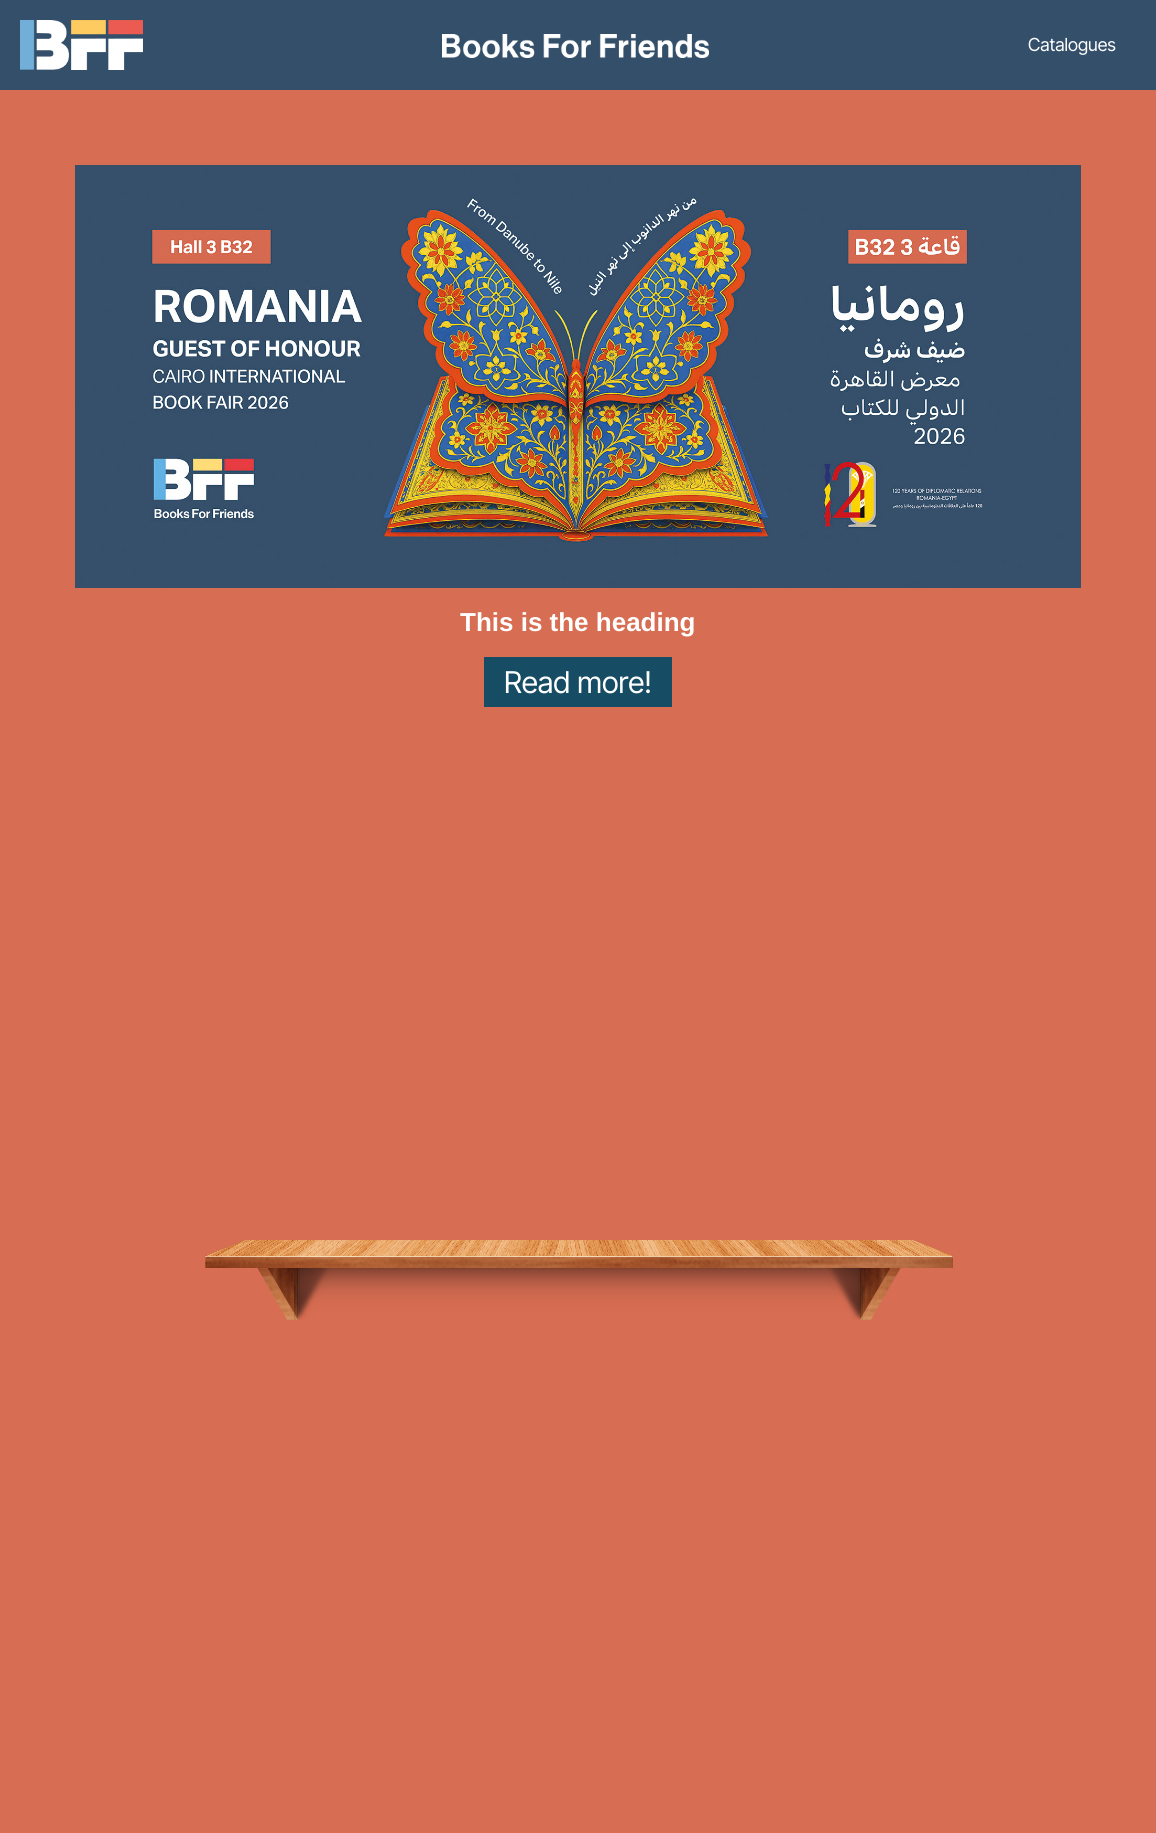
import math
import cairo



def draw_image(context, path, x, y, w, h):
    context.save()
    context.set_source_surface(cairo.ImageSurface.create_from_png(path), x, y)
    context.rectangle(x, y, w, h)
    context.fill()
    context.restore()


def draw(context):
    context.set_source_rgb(52 / 255, 79 / 255, 105 / 255)
    context.paint()
    draw_image(context, "images/1.png", 20, 20, 123, 50)
    draw_image(context, "images/2.png", 442, 34, 267, 24)
    context.set_source_rgb(215 / 255, 109 / 255, 82 / 255)
    context.rectangle(0, 90, 1156, 1743)
    context.fill()
    draw_image(context, "images/3.png", 75, 165, 1006, 423)
    context.set_source_rgb(23 / 255, 77 / 255, 100 / 255)
    context.rectangle(484, 657, 188, 50)
    context.fill()
    draw_image(context, "images/4.png", 205, 1240, 748, 80)
    context.select_font_face("Inter Tight")
    context.set_font_size(18)
    context.set_source_rgb(1, 1, 1)
    context.move_to(1028, 51)
    context.show_text("Catalogues")
    context.select_font_face("Liberation Sans", cairo.FontSlant.NORMAL, cairo.FontWeight.BOLD)
    context.set_font_size(26)
    context.move_to(460, 631)
    context.show_text("This is the heading")
    context.select_font_face("Inter Tight")
    context.set_font_size(30)
    context.move_to(504, 693)
    context.show_text("Read more!")


surface = cairo.ImageSurface(cairo.Format.RGB24, 1156, 1833)
context = cairo.Context(surface)
options = cairo.FontOptions()
options.set_hint_metrics(cairo.HintMetrics.OFF)
options.set_hint_style(cairo.HintStyle.NONE)
context.set_font_options(options)
context.set_miter_limit(4)
draw(context)
surface.write_to_png("out.png")
